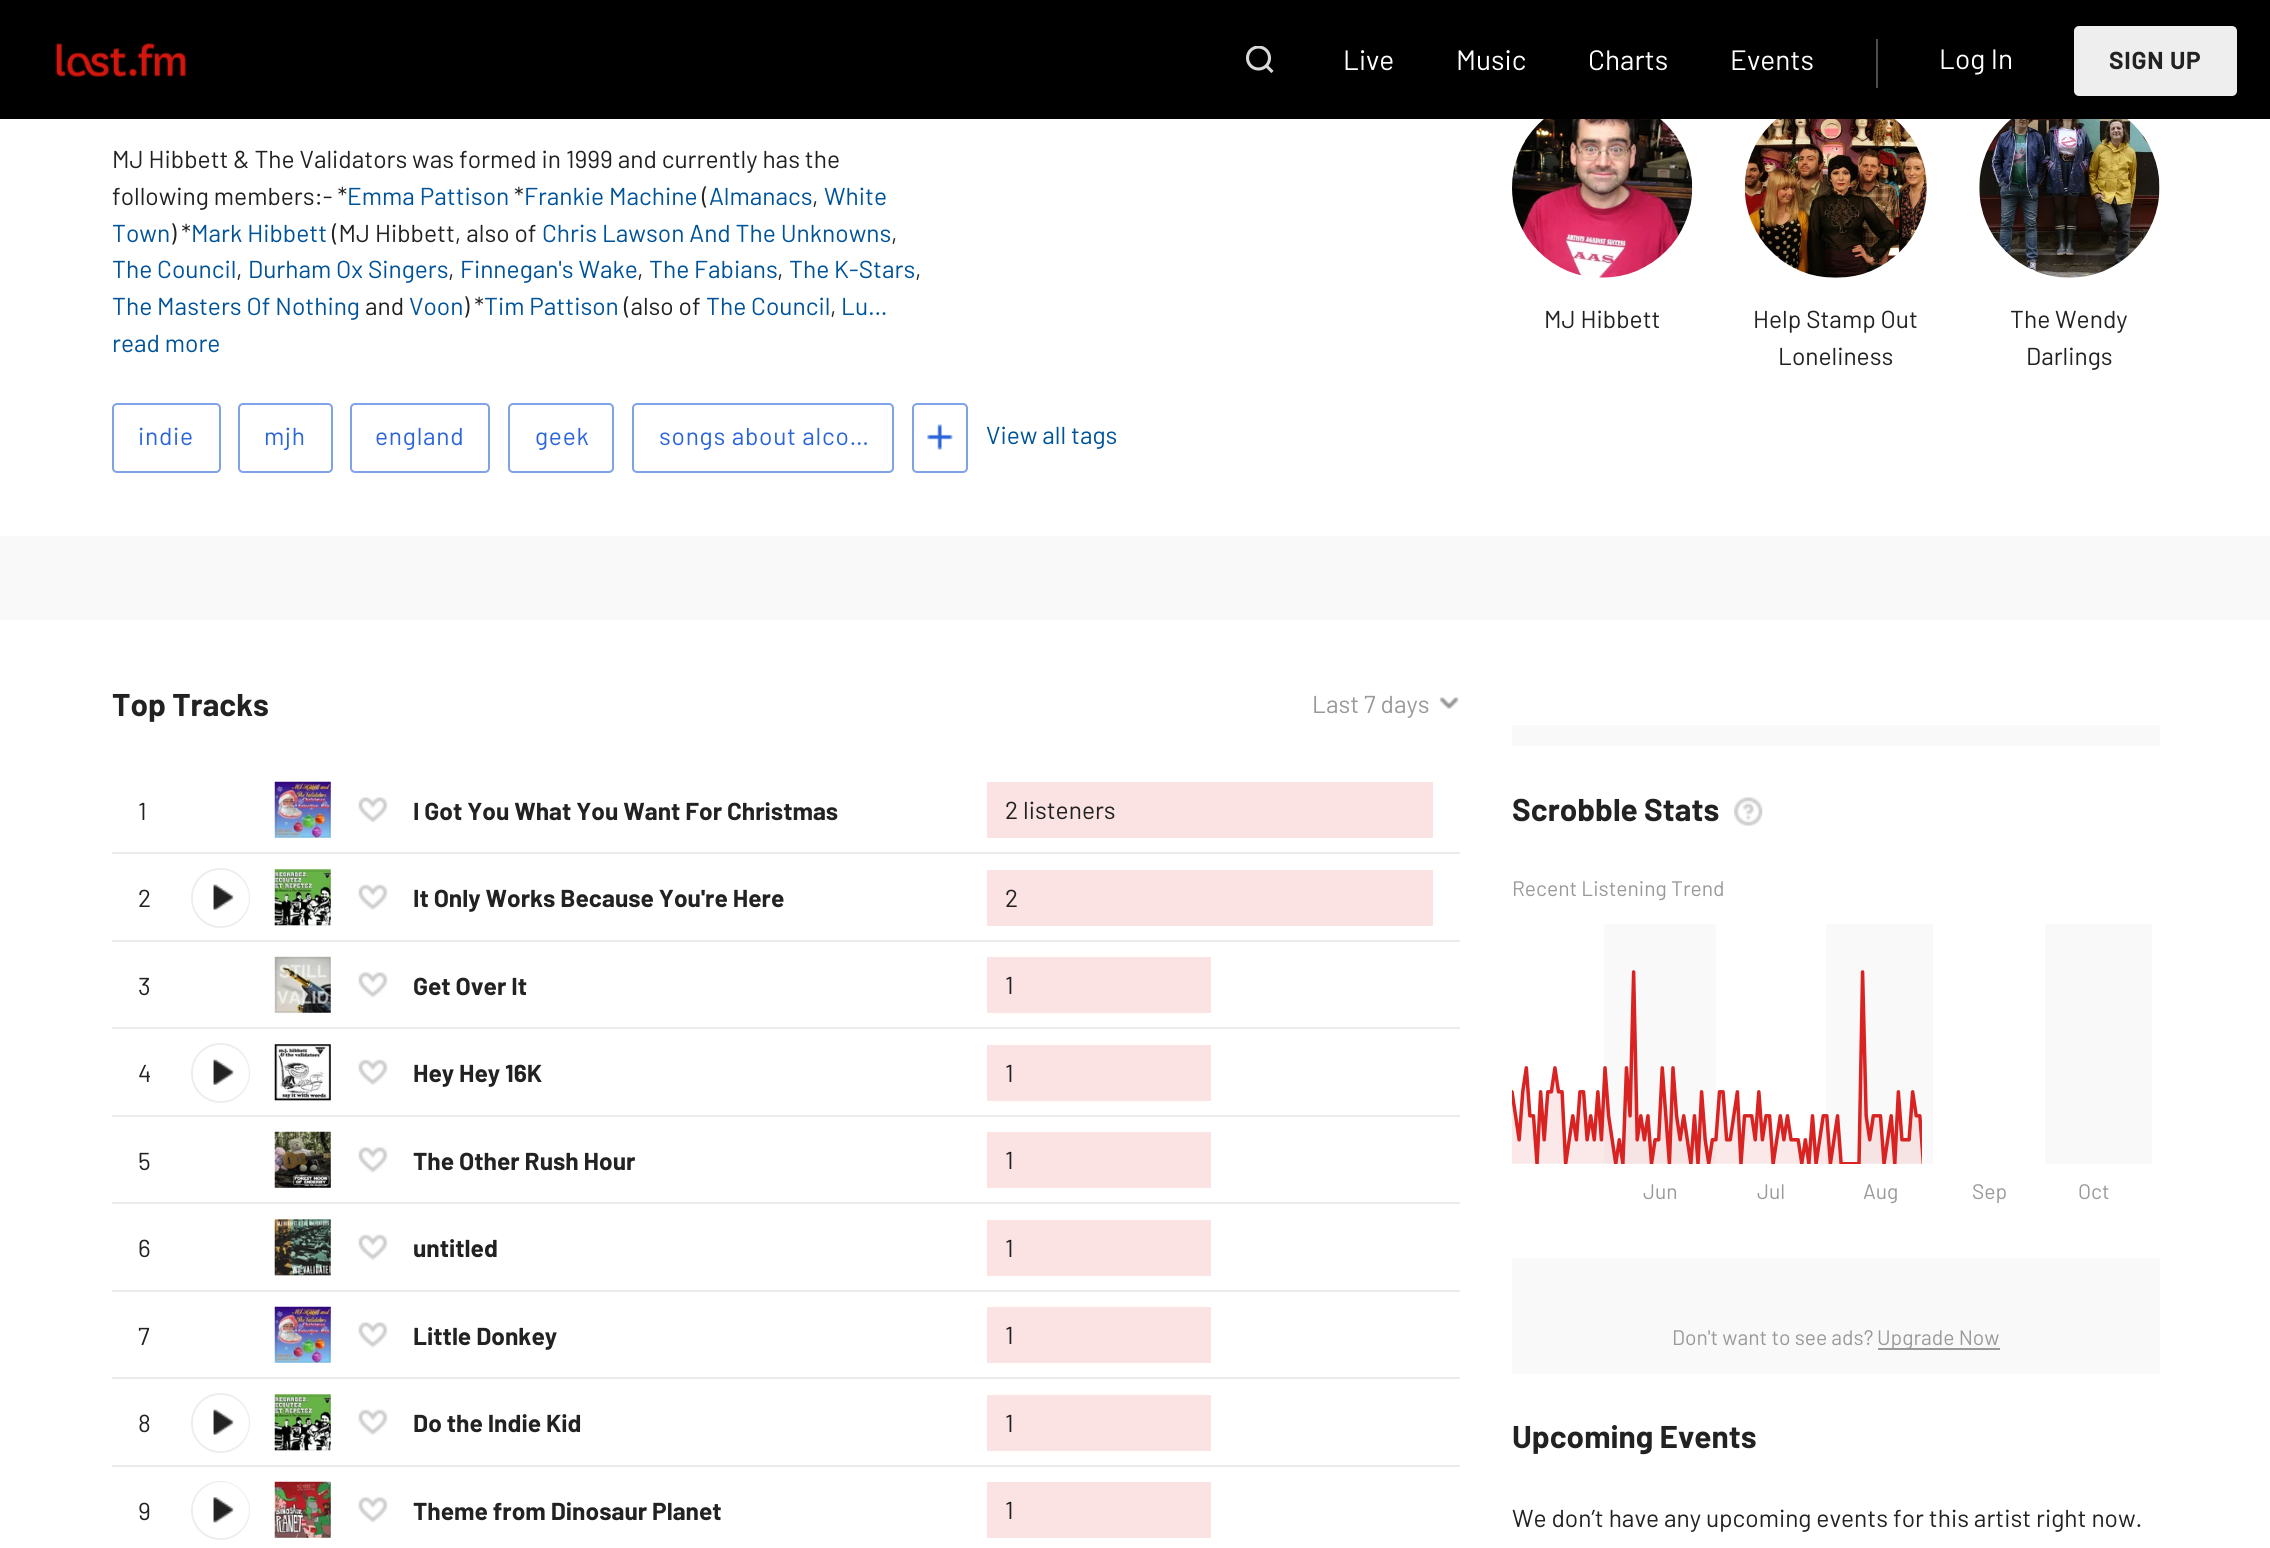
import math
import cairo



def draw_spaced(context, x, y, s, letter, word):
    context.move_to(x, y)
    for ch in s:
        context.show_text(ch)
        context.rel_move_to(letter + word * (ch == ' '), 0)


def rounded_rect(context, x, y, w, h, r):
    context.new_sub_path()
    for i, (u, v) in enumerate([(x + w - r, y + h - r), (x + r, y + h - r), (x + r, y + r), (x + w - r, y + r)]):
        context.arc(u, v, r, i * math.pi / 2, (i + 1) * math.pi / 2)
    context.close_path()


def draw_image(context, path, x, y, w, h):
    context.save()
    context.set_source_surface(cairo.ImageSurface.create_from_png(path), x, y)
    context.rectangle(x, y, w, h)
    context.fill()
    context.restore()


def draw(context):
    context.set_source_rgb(1, 1, 1)
    context.paint()
    context.set_source_rgb(0, 0, 0)
    context.rectangle(0, 0, 2270, 119)
    context.fill()
    draw_image(context, "images/1.png", 55, 43, 131, 34)
    context.save()
    context.rectangle(1246, 46, 28, 28)
    context.clip()
    context.arc(1258.5, 58, 11, 0, 2 * math.pi)
    context.set_source_rgb(217 / 255, 217 / 255, 217 / 255)
    context.set_line_width(3.1)
    context.stroke()
    context.restore()
    context.new_path()
    context.move_to(1266, 65.5)
    context.line_to(1272.5, 72)
    context.set_source_rgb(217 / 255, 217 / 255, 217 / 255)
    context.set_line_width(3.1)
    context.stroke()
    context.set_source_rgb(77 / 255, 77 / 255, 77 / 255)
    context.rectangle(1876, 39, 2, 49)
    context.fill()
    context.set_source_rgb(238 / 255, 238 / 255, 238 / 255)
    rounded_rect(context, 2074, 26, 163, 70, 5)
    context.fill()
    rounded_rect(context, 113, 404, 107, 68, 4)
    context.set_source_rgb(128 / 255, 163 / 255, 232 / 255)
    context.set_line_width(2)
    context.stroke()
    rounded_rect(context, 239, 404, 93, 68, 4)
    context.stroke()
    rounded_rect(context, 351, 404, 138, 68, 4)
    context.stroke()
    rounded_rect(context, 509, 404, 104, 68, 4)
    context.stroke()
    rounded_rect(context, 633, 404, 260, 68, 4)
    context.stroke()
    rounded_rect(context, 913, 404, 54, 68, 4)
    context.stroke()
    draw_image(context, "images/2.png", 927, 424, 26, 26)
    draw_image(context, "images/3.png", 1512, 119, 181, 159)
    draw_image(context, "images/4.png", 1744, 119, 183, 159)
    draw_image(context, "images/5.png", 1979, 119, 181, 159)
    context.set_source_rgb(249 / 255, 249 / 255, 249 / 255)
    context.rectangle(0, 536, 2270, 84)
    context.fill()
    draw_image(context, "images/6.png", 1439, 697, 20, 12)
    draw_image(context, "images/7.png", 274, 781, 57, 57)
    context.rectangle(276, 783, 54, 54)
    context.set_source_rgba(0, 0, 0, 0.07)
    context.stroke()
    draw_image(context, "images/8.png", 358, 797, 30, 26)
    context.set_source_rgb(250 / 255, 227 / 255, 226 / 255)
    context.rectangle(987, 782, 446, 56)
    context.fill()
    context.set_source_rgb(235 / 255, 235 / 255, 235 / 255)
    context.rectangle(112, 852, 1348, 2)
    context.fill()
    rounded_rect(context, 192, 869, 57, 58, 28.5)
    context.set_source_rgb(237 / 255, 237 / 255, 237 / 255)
    context.stroke()
    context.set_source_rgba(1, 1, 1, 0.85)
    context.arc(221, 898, 28, 0, 2 * math.pi)
    context.fill()
    draw_image(context, "images/9.png", 213, 884, 21, 26)
    draw_image(context, "images/10.png", 274, 869, 57, 57)
    context.rectangle(276, 871, 54, 54)
    context.set_source_rgba(0, 0, 0, 0.07)
    context.stroke()
    draw_image(context, "images/11.png", 358, 884, 30, 26)
    context.set_source_rgb(250 / 255, 227 / 255, 226 / 255)
    context.rectangle(987, 870, 446, 56)
    context.fill()
    context.set_source_rgb(235 / 255, 235 / 255, 235 / 255)
    context.rectangle(112, 940, 1348, 2)
    context.fill()
    draw_image(context, "images/12.png", 274, 956, 57, 57)
    context.rectangle(276, 958, 54, 54)
    context.set_source_rgba(0, 0, 0, 0.07)
    context.stroke()
    draw_image(context, "images/8.png", 358, 972, 30, 26)
    context.set_source_rgb(250 / 255, 227 / 255, 226 / 255)
    context.rectangle(987, 957, 224, 56)
    context.fill()
    context.set_source_rgb(235 / 255, 235 / 255, 235 / 255)
    context.rectangle(112, 1027, 1348, 2)
    context.fill()
    rounded_rect(context, 192, 1044, 57, 58, 28.5)
    context.set_source_rgb(237 / 255, 237 / 255, 237 / 255)
    context.stroke()
    context.set_source_rgba(1, 1, 1, 0.85)
    context.arc(221, 1073, 28, 0, 2 * math.pi)
    context.fill()
    draw_image(context, "images/13.png", 213, 1059, 21, 26)
    draw_image(context, "images/14.png", 274, 1044, 57, 57)
    context.rectangle(276, 1046, 54, 54)
    context.set_source_rgba(0, 0, 0, 0.07)
    context.stroke()
    draw_image(context, "images/15.png", 358, 1059, 30, 26)
    context.set_source_rgb(250 / 255, 227 / 255, 226 / 255)
    context.rectangle(987, 1045, 224, 56)
    context.fill()
    context.set_source_rgb(235 / 255, 235 / 255, 235 / 255)
    context.rectangle(112, 1115, 1348, 2)
    context.fill()
    draw_image(context, "images/16.png", 274, 1131, 57, 57)
    context.rectangle(276, 1133, 54, 54)
    context.set_source_rgba(0, 0, 0, 0.07)
    context.stroke()
    draw_image(context, "images/8.png", 358, 1147, 30, 26)
    context.set_source_rgb(250 / 255, 227 / 255, 226 / 255)
    context.rectangle(987, 1132, 224, 56)
    context.fill()
    context.set_source_rgb(235 / 255, 235 / 255, 235 / 255)
    context.rectangle(112, 1202, 1348, 2)
    context.fill()
    draw_image(context, "images/17.png", 274, 1219, 57, 57)
    context.rectangle(276, 1221, 54, 54)
    context.set_source_rgba(0, 0, 0, 0.07)
    context.stroke()
    draw_image(context, "images/11.png", 358, 1234, 30, 26)
    context.set_source_rgb(250 / 255, 227 / 255, 226 / 255)
    context.rectangle(987, 1220, 224, 56)
    context.fill()
    context.set_source_rgb(235 / 255, 235 / 255, 235 / 255)
    context.rectangle(112, 1290, 1348, 2)
    context.fill()
    draw_image(context, "images/7.png", 274, 1306, 57, 57)
    context.rectangle(276, 1308, 54, 54)
    context.set_source_rgba(0, 0, 0, 0.07)
    context.stroke()
    draw_image(context, "images/8.png", 358, 1322, 30, 26)
    context.set_source_rgb(250 / 255, 227 / 255, 226 / 255)
    context.rectangle(987, 1307, 224, 56)
    context.fill()
    context.set_source_rgb(235 / 255, 235 / 255, 235 / 255)
    context.rectangle(112, 1377, 1348, 2)
    context.fill()
    rounded_rect(context, 192, 1394, 57, 58, 28.5)
    context.set_source_rgb(237 / 255, 237 / 255, 237 / 255)
    context.stroke()
    context.set_source_rgba(1, 1, 1, 0.85)
    context.arc(221, 1423, 28, 0, 2 * math.pi)
    context.fill()
    draw_image(context, "images/9.png", 213, 1409, 21, 26)
    draw_image(context, "images/10.png", 274, 1394, 57, 57)
    context.rectangle(276, 1396, 54, 54)
    context.set_source_rgba(0, 0, 0, 0.07)
    context.stroke()
    draw_image(context, "images/11.png", 358, 1409, 30, 26)
    context.set_source_rgb(250 / 255, 227 / 255, 226 / 255)
    context.rectangle(987, 1395, 224, 56)
    context.fill()
    context.set_source_rgb(235 / 255, 235 / 255, 235 / 255)
    context.rectangle(112, 1465, 1348, 2)
    context.fill()
    context.arc(220.5, 1510.5, 28.5, 0, 2 * math.pi)
    context.set_source_rgb(237 / 255, 237 / 255, 237 / 255)
    context.stroke()
    context.set_source_rgba(1, 1, 1, 0.85)
    context.arc(221, 1510, 28, 0, 2 * math.pi)
    context.fill()
    draw_image(context, "images/18.png", 213, 1497, 21, 26)
    draw_image(context, "images/19.png", 274, 1481, 57, 57)
    context.rectangle(276, 1483, 54, 54)
    context.set_source_rgba(0, 0, 0, 0.07)
    context.stroke()
    draw_image(context, "images/8.png", 358, 1497, 30, 26)
    context.set_source_rgb(250 / 255, 227 / 255, 226 / 255)
    context.rectangle(987, 1482, 224, 56)
    context.fill()
    context.set_source_rgb(249 / 255, 249 / 255, 249 / 255)
    context.rectangle(1512, 725, 648, 21)
    context.fill()
    draw_image(context, "images/20.png", 1734, 797, 29, 29)
    draw_image(context, "images/21.png", 1512, 924, 640, 240)
    context.rectangle(1512, 1258, 648, 116)
    context.fill()
    context.set_source_rgb(153 / 255, 153 / 255, 153 / 255)
    context.rectangle(1878, 1348, 122, 2)
    context.fill()
    context.select_font_face("Barlow")
    context.set_font_size(28)
    context.set_source_rgb(1, 1, 1)
    context.move_to(1343, 70)
    context.show_text("Live")
    context.move_to(1456, 70)
    context.show_text("Music")
    context.move_to(1588, 70)
    context.show_text("Charts")
    context.move_to(1730, 70)
    context.show_text("Events")
    context.move_to(1939, 69)
    context.show_text("Log In")
    context.select_font_face("Barlow", cairo.FontSlant.NORMAL, cairo.FontWeight.BOLD)
    context.set_font_size(24.5)
    context.set_source_rgb(34 / 255, 34 / 255, 34 / 255)
    draw_spaced(context, 2109, 69, "SIGN UP", 0.75, 0)
    context.select_font_face("Barlow")
    context.move_to(112, 168)
    context.show_text("MJ Hibbett & The Validators was formed in 1999 and currently has the")
    context.move_to(112, 205)
    context.show_text("following members:- *")
    context.set_source_rgb(0, 83 / 255, 153 / 255)
    context.move_to(347, 205)
    context.show_text("Emma Pattison")
    context.set_source_rgb(34 / 255, 34 / 255, 34 / 255)
    context.move_to(514, 205)
    context.show_text("*")
    context.set_source_rgb(0, 83 / 255, 153 / 255)
    context.move_to(524, 205)
    context.show_text("Frankie Machine")
    context.set_source_rgb(34 / 255, 34 / 255, 34 / 255)
    context.move_to(702, 205)
    context.show_text("(")
    context.set_source_rgb(0, 83 / 255, 153 / 255)
    context.move_to(709, 205)
    context.show_text("Almanacs")
    context.set_source_rgb(34 / 255, 34 / 255, 34 / 255)
    context.move_to(812, 205)
    context.show_text(",")
    context.set_source_rgb(0, 83 / 255, 153 / 255)
    context.move_to(824, 205)
    context.show_text("White")
    context.move_to(112, 242)
    context.show_text("Town")
    context.set_source_rgb(34 / 255, 34 / 255, 34 / 255)
    context.move_to(170, 242)
    context.show_text(") *")
    context.set_source_rgb(0, 83 / 255, 153 / 255)
    context.move_to(191, 242)
    context.show_text("Mark Hibbett")
    context.set_source_rgb(34 / 255, 34 / 255, 34 / 255)
    context.move_to(332, 242)
    context.show_text("(MJ Hibbett, also of")
    context.set_source_rgb(0, 83 / 255, 153 / 255)
    context.move_to(542, 242)
    context.show_text("Chris Lawson And The Unknowns")
    context.set_source_rgb(34 / 255, 34 / 255, 34 / 255)
    context.move_to(891, 242)
    context.show_text(",")
    context.set_source_rgb(0, 83 / 255, 153 / 255)
    context.move_to(112, 278)
    context.show_text("The Council")
    context.set_source_rgb(34 / 255, 34 / 255, 34 / 255)
    context.move_to(236, 278)
    context.show_text(",")
    context.set_source_rgb(0, 83 / 255, 153 / 255)
    context.move_to(248, 278)
    context.show_text("Durham Ox Singers")
    context.set_source_rgb(34 / 255, 34 / 255, 34 / 255)
    context.move_to(448, 278)
    context.show_text(",")
    context.set_source_rgb(0, 83 / 255, 153 / 255)
    context.move_to(460, 278)
    context.show_text("Finnegan's Wake")
    context.set_source_rgb(34 / 255, 34 / 255, 34 / 255)
    context.move_to(637, 278)
    context.show_text(",")
    context.set_source_rgb(0, 83 / 255, 153 / 255)
    context.move_to(649, 278)
    context.show_text("The Fabians")
    context.set_source_rgb(34 / 255, 34 / 255, 34 / 255)
    context.move_to(777, 278)
    context.show_text(",")
    context.set_source_rgb(0, 83 / 255, 153 / 255)
    context.move_to(789, 278)
    context.show_text("The K-Stars")
    context.set_source_rgb(34 / 255, 34 / 255, 34 / 255)
    context.move_to(915, 278)
    context.show_text(",")
    context.set_source_rgb(0, 83 / 255, 153 / 255)
    context.move_to(112, 315)
    context.show_text("The Masters Of Nothing")
    context.set_source_rgb(34 / 255, 34 / 255, 34 / 255)
    context.move_to(365, 315)
    context.show_text("and")
    context.set_source_rgb(0, 83 / 255, 153 / 255)
    context.move_to(409, 315)
    context.show_text("Voon")
    context.set_source_rgb(34 / 255, 34 / 255, 34 / 255)
    context.move_to(463, 315)
    context.show_text(") *")
    context.set_source_rgb(0, 83 / 255, 153 / 255)
    context.move_to(484, 315)
    context.show_text("Tim Pattison")
    context.set_source_rgb(34 / 255, 34 / 255, 34 / 255)
    context.move_to(624, 315)
    context.show_text("(also of")
    context.set_source_rgb(0, 83 / 255, 153 / 255)
    context.move_to(706, 315)
    context.show_text("The Council")
    context.set_source_rgb(34 / 255, 34 / 255, 34 / 255)
    context.move_to(830, 315)
    context.show_text(",")
    context.set_source_rgb(0, 83 / 255, 153 / 255)
    context.move_to(841, 315)
    context.show_text("Lu…")
    context.move_to(112, 352)
    context.show_text("read more")
    context.set_source_rgb(43 / 255, 101 / 255, 217 / 255)
    draw_spaced(context, 138, 445, "indie", 0.75, 0)
    draw_spaced(context, 264, 445, "mjh", 0.75, 0)
    draw_spaced(context, 375, 445, "england", 0.75, 0)
    draw_spaced(context, 535, 445, "geek", 0.75, 0)
    draw_spaced(context, 659, 445, "songs about alco…", 0.75, 0)
    context.set_source_rgb(0, 83 / 255, 153 / 255)
    context.move_to(986, 444)
    context.show_text("View all tags")
    context.set_source_rgb(34 / 255, 34 / 255, 34 / 255)
    context.move_to(1544, 328)
    context.show_text("MJ Hibbett")
    context.move_to(1753, 328)
    context.show_text("Help Stamp Out")
    context.move_to(1778, 365)
    context.show_text("Loneliness")
    context.move_to(2010, 328)
    context.show_text("The Wendy")
    context.move_to(2026, 365)
    context.show_text("Darlings")
    context.select_font_face("Barlow", cairo.FontSlant.NORMAL, cairo.FontWeight.BOLD)
    context.set_font_size(31.5)
    context.move_to(112, 716)
    context.show_text("Top Tracks")
    context.select_font_face("Barlow")
    context.set_font_size(24.5)
    context.set_source_rgb(153 / 255, 153 / 255, 153 / 255)
    context.move_to(1312, 713)
    context.show_text("Last 7 days")
    context.set_source_rgb(34 / 255, 34 / 255, 34 / 255)
    context.move_to(138, 820)
    context.show_text("1")
    context.select_font_face("Barlow", cairo.FontSlant.NORMAL, cairo.FontWeight.BOLD)
    context.move_to(413, 820)
    context.show_text("I Got You What You Want For Christmas")
    context.select_font_face("Barlow")
    context.move_to(1005, 819)
    context.show_text("2 listeners")
    context.move_to(138, 907)
    context.show_text("2")
    context.select_font_face("Barlow", cairo.FontSlant.NORMAL, cairo.FontWeight.BOLD)
    context.move_to(413, 907)
    context.show_text("It Only Works Because You're Here")
    context.select_font_face("Barlow")
    context.move_to(1005, 907)
    context.show_text("2")
    context.move_to(138, 995)
    context.show_text("3")
    context.select_font_face("Barlow", cairo.FontSlant.NORMAL, cairo.FontWeight.BOLD)
    context.move_to(413, 995)
    context.show_text("Get Over It")
    context.select_font_face("Barlow")
    context.move_to(1005, 994)
    context.show_text("1")
    context.move_to(138, 1082)
    context.show_text("4")
    context.select_font_face("Barlow", cairo.FontSlant.NORMAL, cairo.FontWeight.BOLD)
    context.move_to(413, 1082)
    context.show_text("Hey Hey 16K")
    context.select_font_face("Barlow")
    context.move_to(1005, 1082)
    context.show_text("1")
    context.move_to(138, 1170)
    context.show_text("5")
    context.select_font_face("Barlow", cairo.FontSlant.NORMAL, cairo.FontWeight.BOLD)
    context.move_to(413, 1170)
    context.show_text("The Other Rush Hour")
    context.select_font_face("Barlow")
    context.move_to(1005, 1169)
    context.show_text("1")
    context.move_to(138, 1257)
    context.show_text("6")
    context.select_font_face("Barlow", cairo.FontSlant.NORMAL, cairo.FontWeight.BOLD)
    context.move_to(413, 1257)
    context.show_text("untitled")
    context.select_font_face("Barlow")
    context.move_to(1005, 1257)
    context.show_text("1")
    context.move_to(138, 1345)
    context.show_text("7")
    context.select_font_face("Barlow", cairo.FontSlant.NORMAL, cairo.FontWeight.BOLD)
    context.move_to(413, 1345)
    context.show_text("Little Donkey")
    context.select_font_face("Barlow")
    context.move_to(1005, 1344)
    context.show_text("1")
    context.move_to(138, 1432)
    context.show_text("8")
    context.select_font_face("Barlow", cairo.FontSlant.NORMAL, cairo.FontWeight.BOLD)
    context.move_to(413, 1432)
    context.show_text("Do the Indie Kid")
    context.select_font_face("Barlow")
    context.move_to(1005, 1432)
    context.show_text("1")
    context.move_to(138, 1520)
    context.show_text("9")
    context.select_font_face("Barlow", cairo.FontSlant.NORMAL, cairo.FontWeight.BOLD)
    context.move_to(413, 1520)
    context.show_text("Theme from Dinosaur Planet")
    context.select_font_face("Barlow")
    context.move_to(1005, 1519)
    context.show_text("1")
    context.select_font_face("Barlow", cairo.FontSlant.NORMAL, cairo.FontWeight.BOLD)
    context.set_font_size(31.5)
    context.move_to(1512, 821)
    context.show_text("Scrobble Stats")
    context.select_font_face("Barlow")
    context.set_font_size(21)
    context.set_source_rgb(153 / 255, 153 / 255, 153 / 255)
    context.move_to(1512, 896)
    context.show_text("Recent Listening Trend")
    context.move_to(1643, 1199)
    context.show_text("Jun")
    context.move_to(1757, 1199)
    context.show_text("Jul")
    context.move_to(1863, 1199)
    context.show_text("Aug")
    context.move_to(1972, 1199)
    context.show_text("Sep")
    context.move_to(2078, 1199)
    context.show_text("Oct")
    context.move_to(1672, 1345)
    context.show_text("Don't want to see ads?")
    context.move_to(1877, 1345)
    context.show_text("Upgrade Now")
    context.select_font_face("Barlow", cairo.FontSlant.NORMAL, cairo.FontWeight.BOLD)
    context.set_font_size(31.5)
    context.set_source_rgb(34 / 255, 34 / 255, 34 / 255)
    context.move_to(1512, 1448)
    context.show_text("Upcoming Events")
    context.select_font_face("Barlow")
    context.set_font_size(24.5)
    context.move_to(1512, 1527)
    context.show_text("We don’t have any upcoming events for this artist right now.")


surface = cairo.ImageSurface(cairo.Format.RGB24, 2270, 1548)
context = cairo.Context(surface)
options = cairo.FontOptions()
options.set_hint_metrics(cairo.HintMetrics.OFF)
options.set_hint_style(cairo.HintStyle.NONE)
context.set_font_options(options)
context.set_miter_limit(4)
draw(context)
surface.write_to_png("out.png")
